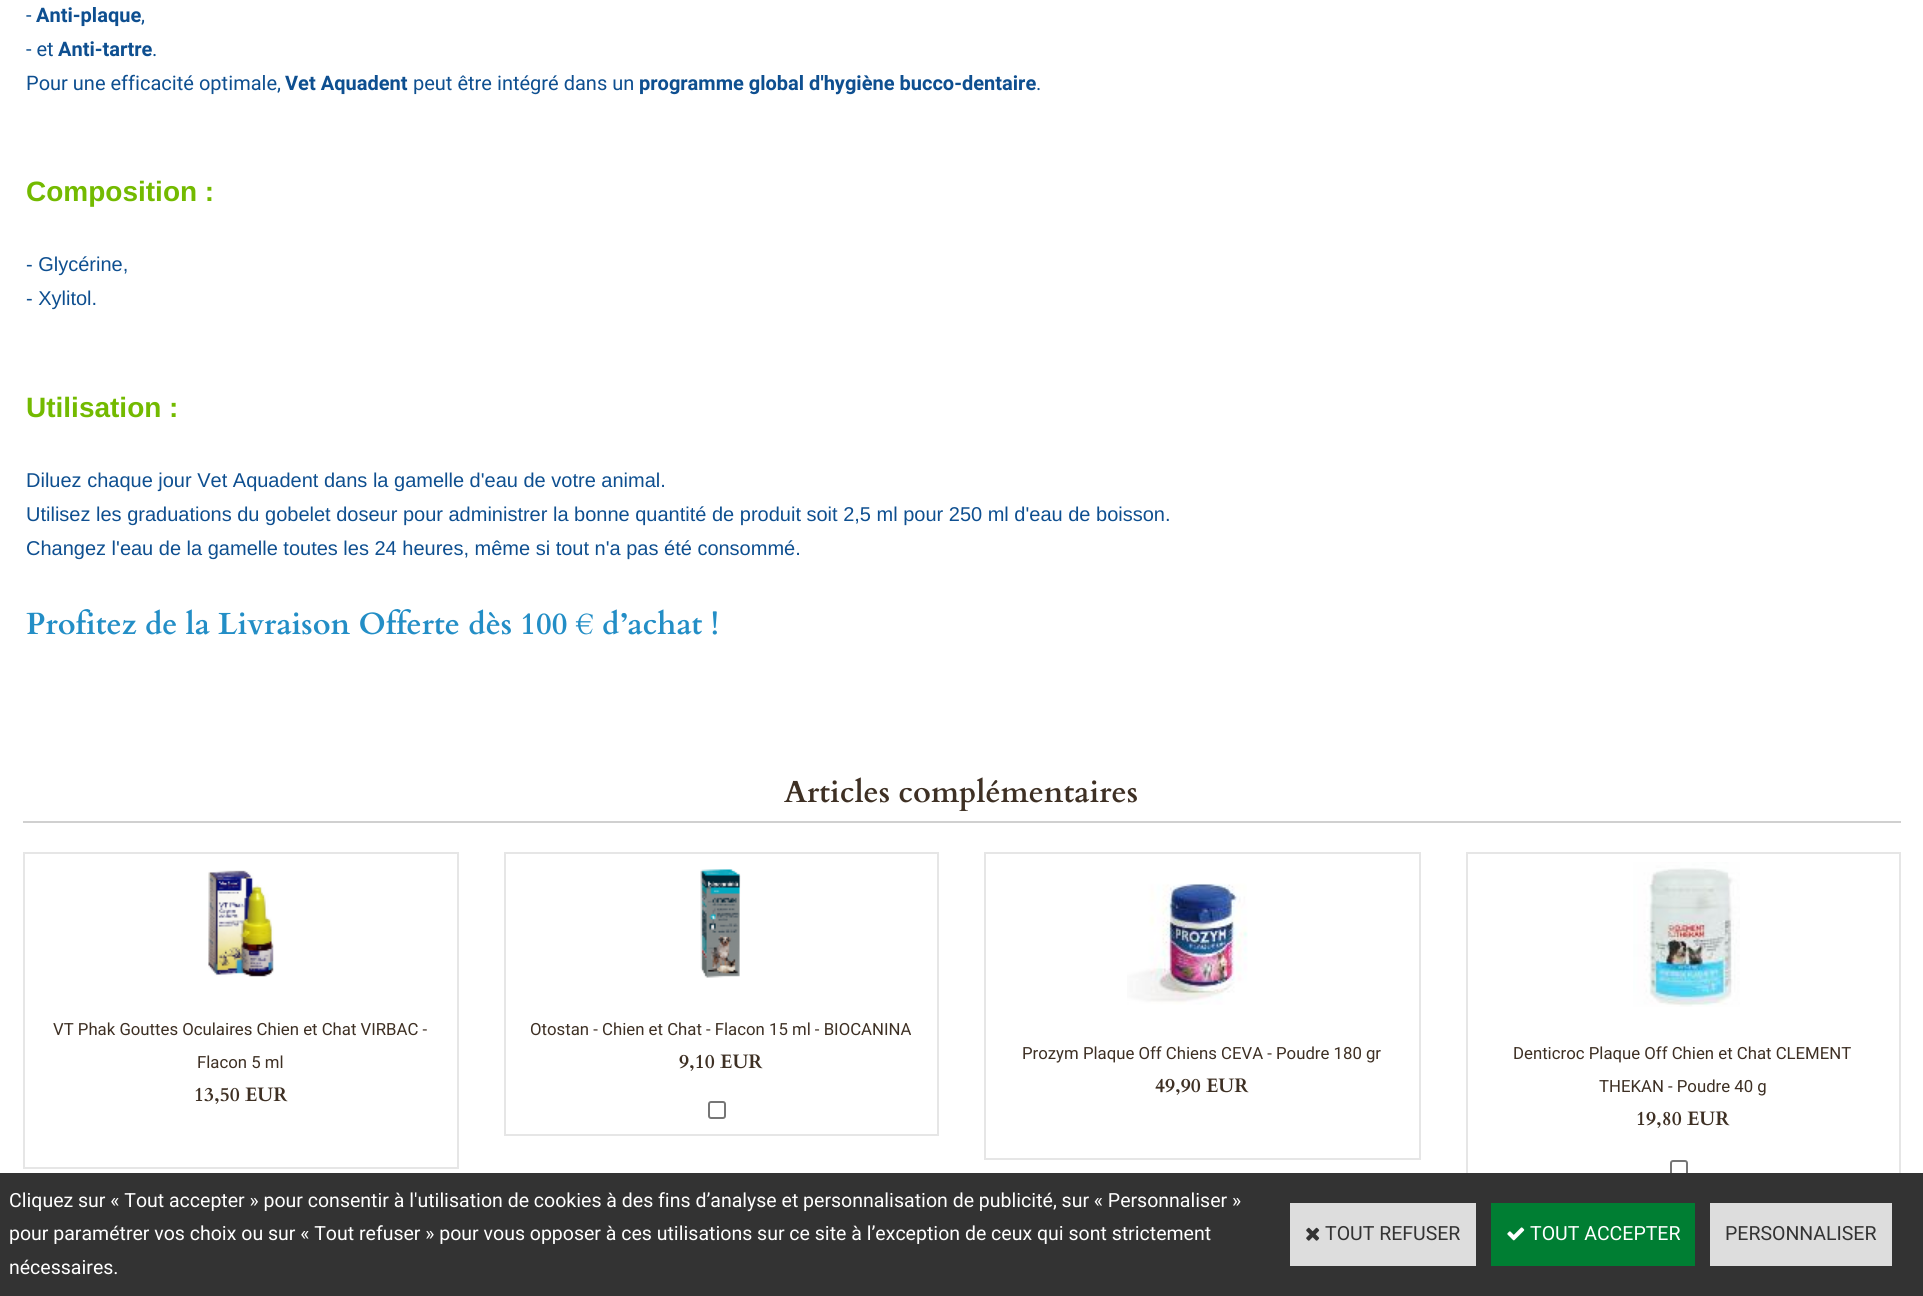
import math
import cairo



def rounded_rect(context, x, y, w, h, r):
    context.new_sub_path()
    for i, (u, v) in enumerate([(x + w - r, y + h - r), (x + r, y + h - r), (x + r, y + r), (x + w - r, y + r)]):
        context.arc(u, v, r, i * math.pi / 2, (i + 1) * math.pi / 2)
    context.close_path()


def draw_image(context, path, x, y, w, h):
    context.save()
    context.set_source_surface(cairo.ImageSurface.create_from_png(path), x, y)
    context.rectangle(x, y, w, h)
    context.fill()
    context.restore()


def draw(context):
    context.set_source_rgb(1, 1, 1)
    context.paint()
    context.set_source_rgb(208 / 255, 208 / 255, 208 / 255)
    context.rectangle(23, 821, 1878, 2)
    context.fill()
    context.rectangle(24, 853, 434, 315)
    context.set_source_rgb(230 / 255, 230 / 255, 230 / 255)
    context.stroke()
    draw_image(context, "images/1.png", 208, 870, 66, 107)
    context.rectangle(505, 853, 433, 282)
    context.stroke()
    draw_image(context, "images/2.png", 700, 869, 41, 109)
    rounded_rect(context, 709, 1102, 16, 16, 2)
    context.set_source_rgb(118 / 255, 118 / 255, 118 / 255)
    context.stroke()
    context.rectangle(985, 853, 435, 306)
    context.set_source_rgb(230 / 255, 230 / 255, 230 / 255)
    context.stroke()
    draw_image(context, "images/3.png", 1127, 883, 121, 122)
    context.rectangle(1467, 853, 433, 339)
    context.stroke()
    draw_image(context, "images/4.png", 1633, 862, 107, 145)
    rounded_rect(context, 1671, 1161, 16, 16, 2)
    context.set_source_rgb(118 / 255, 118 / 255, 118 / 255)
    context.stroke()
    context.set_source_rgb(51 / 255, 51 / 255, 51 / 255)
    context.rectangle(0, 1173, 1923, 123)
    context.fill()
    context.set_source_rgb(221 / 255, 221 / 255, 221 / 255)
    context.rectangle(1290, 1203, 186, 63)
    context.fill()
    draw_image(context, "images/5.png", 1306, 1227, 14, 14)
    context.set_source_rgb(0, 126 / 255, 51 / 255)
    context.rectangle(1491, 1203, 204, 63)
    context.fill()
    draw_image(context, "images/6.png", 1507, 1227, 18, 14)
    context.set_source_rgb(221 / 255, 221 / 255, 221 / 255)
    context.rectangle(1710, 1203, 182, 63)
    context.fill()
    context.select_font_face("Heebo")
    context.set_font_size(20)
    context.set_source_rgb(14 / 255, 79 / 255, 144 / 255)
    context.move_to(26, 22)
    context.show_text("-")
    context.select_font_face("Heebo", cairo.FontSlant.NORMAL, cairo.FontWeight.BOLD)
    context.move_to(36, 22)
    context.show_text("Anti-plaque")
    context.select_font_face("Heebo")
    context.move_to(141, 22)
    context.show_text(",")
    context.move_to(26, 56)
    context.show_text("- et")
    context.select_font_face("Heebo", cairo.FontSlant.NORMAL, cairo.FontWeight.BOLD)
    context.move_to(58, 56)
    context.show_text("Anti-tartre")
    context.select_font_face("Heebo")
    context.move_to(152, 56)
    context.show_text(".")
    context.move_to(26, 90)
    context.show_text("Pour une efficacité optimale,")
    context.select_font_face("Heebo", cairo.FontSlant.NORMAL, cairo.FontWeight.BOLD)
    context.move_to(285, 90)
    context.show_text("Vet Aquadent")
    context.select_font_face("Heebo")
    context.move_to(413, 90)
    context.show_text("peut être intégré dans un")
    context.select_font_face("Heebo", cairo.FontSlant.NORMAL, cairo.FontWeight.BOLD)
    context.move_to(639, 90)
    context.show_text("programme global d'hygiène bucco-dentaire")
    context.select_font_face("Heebo")
    context.move_to(1036, 90)
    context.show_text(".")
    context.select_font_face("Liberation Sans", cairo.FontSlant.NORMAL, cairo.FontWeight.BOLD)
    context.set_font_size(28)
    context.set_source_rgb(115 / 255, 186 / 255, 0)
    context.move_to(26, 201)
    context.show_text("Composition :")
    context.select_font_face("Liberation Sans")
    context.set_font_size(20)
    context.set_source_rgb(14 / 255, 79 / 255, 144 / 255)
    context.move_to(26, 271)
    context.show_text("- Glycérine,")
    context.move_to(26, 305)
    context.show_text("- Xylitol.")
    context.select_font_face("Liberation Sans", cairo.FontSlant.NORMAL, cairo.FontWeight.BOLD)
    context.set_font_size(28)
    context.set_source_rgb(115 / 255, 186 / 255, 0)
    context.move_to(26, 417)
    context.show_text("Utilisation :")
    context.select_font_face("Liberation Sans")
    context.set_font_size(20)
    context.set_source_rgb(14 / 255, 79 / 255, 144 / 255)
    context.move_to(26, 487)
    context.show_text("Diluez chaque jour Vet Aquadent dans la gamelle d'eau de votre animal.")
    context.move_to(26, 521)
    context.show_text("Utilisez les graduations du gobelet doseur pour administrer la bonne quantité de produit soit 2,5 ml pour 250 ml d'eau de boisson.")
    context.move_to(26, 555)
    context.show_text("Changez l'eau de la gamelle toutes les 24 heures, même si tout n'a pas été consommé.")
    context.select_font_face("Cardo", cairo.FontSlant.NORMAL, cairo.FontWeight.BOLD)
    context.set_font_size(30.6)
    context.set_source_rgb(35 / 255, 142 / 255, 198 / 255)
    context.move_to(26, 634)
    context.show_text("Profitez de la Livraison Offerte dès 100 € d’achat !")
    context.set_source_rgb(62 / 255, 48 / 255, 36 / 255)
    context.move_to(784, 802)
    context.show_text("Articles complémentaires")
    context.select_font_face("Heebo")
    context.set_font_size(16.75)
    context.move_to(53, 1035)
    context.show_text("VT Phak Gouttes Oculaires Chien et Chat VIRBAC -")
    context.move_to(197, 1068)
    context.show_text("Flacon 5 ml")
    context.select_font_face("Cardo", cairo.FontSlant.NORMAL, cairo.FontWeight.BOLD)
    context.set_font_size(19.5)
    context.move_to(194, 1101)
    context.show_text("13,50 EUR")
    context.select_font_face("Heebo")
    context.set_font_size(16.75)
    context.move_to(530, 1035)
    context.show_text("Otostan - Chien et Chat - Flacon 15 ml - BIOCANINA")
    context.select_font_face("Cardo", cairo.FontSlant.NORMAL, cairo.FontWeight.BOLD)
    context.set_font_size(19.5)
    context.move_to(679, 1068)
    context.show_text("9,10 EUR")
    context.select_font_face("Heebo")
    context.set_font_size(16.75)
    context.move_to(1022, 1059)
    context.show_text("Prozym Plaque Off Chiens CEVA - Poudre 180 gr")
    context.select_font_face("Cardo", cairo.FontSlant.NORMAL, cairo.FontWeight.BOLD)
    context.set_font_size(19.5)
    context.move_to(1155, 1092)
    context.show_text("49,90 EUR")
    context.select_font_face("Heebo")
    context.set_font_size(16.75)
    context.move_to(1513, 1059)
    context.show_text("Denticroc Plaque Off Chien et Chat CLEMENT")
    context.move_to(1599, 1092)
    context.show_text("THEKAN - Poudre 40 g")
    context.select_font_face("Cardo", cairo.FontSlant.NORMAL, cairo.FontWeight.BOLD)
    context.set_font_size(19.5)
    context.move_to(1636, 1125)
    context.show_text("19,80 EUR")
    context.select_font_face("Heebo")
    context.set_source_rgb(1, 1, 1)
    context.move_to(9, 1207)
    context.show_text("Cliquez sur « Tout accepter » pour consentir à l'utilisation de cookies à des fins d’analyse et personnalisation de publicité, sur « Personnaliser »")
    context.move_to(9, 1240)
    context.show_text("pour paramétrer vos choix ou sur « Tout refuser » pour vous opposer à ces utilisations sur ce site à l’exception de ceux qui sont strictement")
    context.move_to(9, 1274)
    context.show_text("nécessaires.")
    context.set_source_rgb(51 / 255, 51 / 255, 51 / 255)
    context.move_to(1325, 1240)
    context.show_text("TOUT REFUSER")
    context.set_source_rgb(1, 1, 1)
    context.move_to(1530, 1240)
    context.show_text("TOUT ACCEPTER")
    context.set_source_rgb(51 / 255, 51 / 255, 51 / 255)
    context.move_to(1725, 1240)
    context.show_text("PERSONNALISER")


surface = cairo.ImageSurface(cairo.Format.RGB24, 1923, 1296)
context = cairo.Context(surface)
options = cairo.FontOptions()
options.set_hint_metrics(cairo.HintMetrics.OFF)
options.set_hint_style(cairo.HintStyle.NONE)
context.set_font_options(options)
context.set_miter_limit(4)
draw(context)
surface.write_to_png("out.png")
